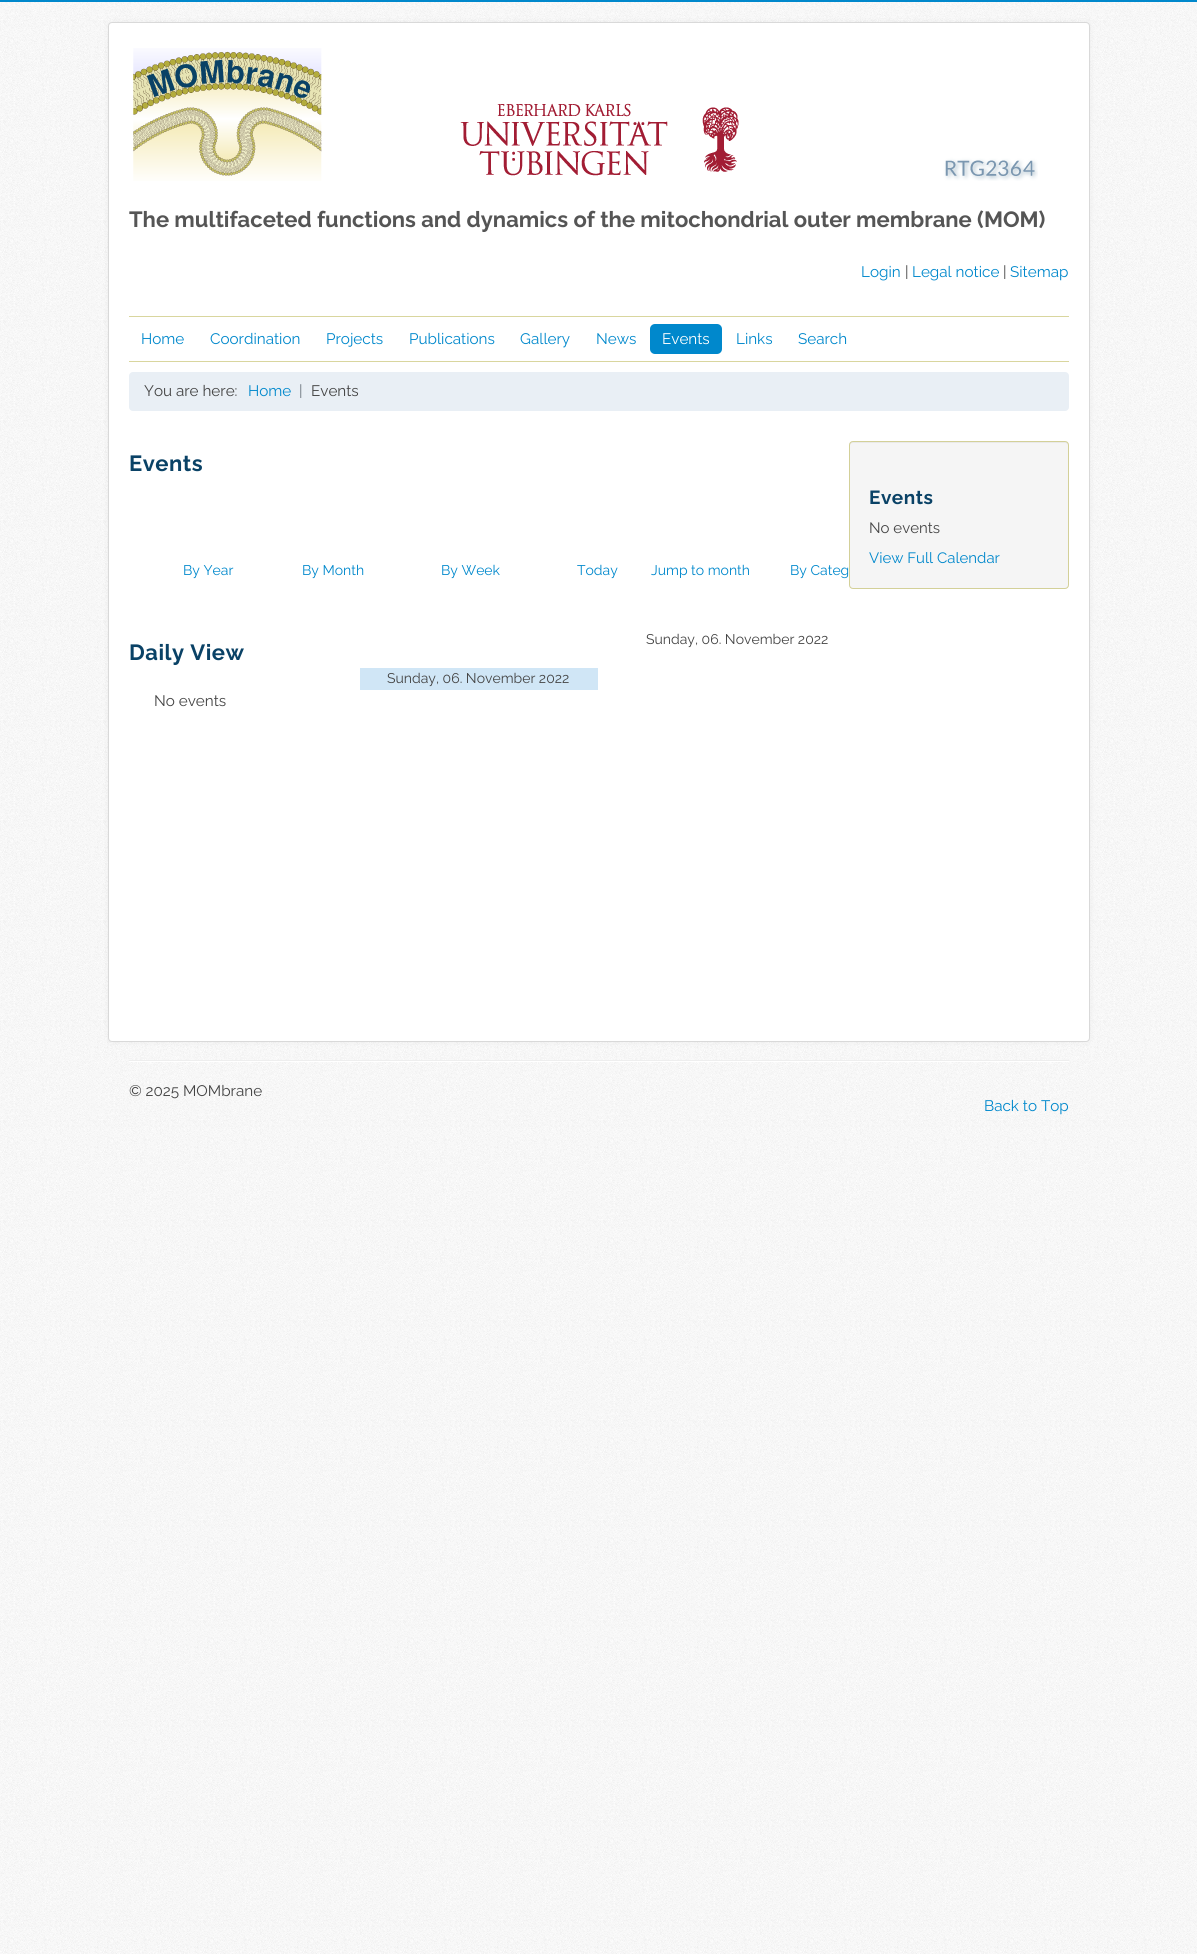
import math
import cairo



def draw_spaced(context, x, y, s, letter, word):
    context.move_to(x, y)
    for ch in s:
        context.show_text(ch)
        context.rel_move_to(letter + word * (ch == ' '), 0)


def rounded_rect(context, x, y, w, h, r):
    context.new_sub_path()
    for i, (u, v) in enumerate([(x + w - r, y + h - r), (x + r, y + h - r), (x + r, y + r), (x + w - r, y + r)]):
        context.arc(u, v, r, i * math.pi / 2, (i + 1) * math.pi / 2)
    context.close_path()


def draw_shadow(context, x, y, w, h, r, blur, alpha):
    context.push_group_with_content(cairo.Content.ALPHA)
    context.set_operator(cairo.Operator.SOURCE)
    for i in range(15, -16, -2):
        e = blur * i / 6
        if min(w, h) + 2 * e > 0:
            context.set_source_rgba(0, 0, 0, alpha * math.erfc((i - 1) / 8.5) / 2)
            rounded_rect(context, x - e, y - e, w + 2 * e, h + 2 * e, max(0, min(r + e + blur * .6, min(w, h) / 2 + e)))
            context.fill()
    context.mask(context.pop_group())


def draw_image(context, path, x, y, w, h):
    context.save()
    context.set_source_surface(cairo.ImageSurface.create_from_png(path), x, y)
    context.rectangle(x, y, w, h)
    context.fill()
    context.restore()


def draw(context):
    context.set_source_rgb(1, 1, 1)
    context.paint()
    draw_image(context, "images/1.png", 0, 2, 1197, 1952)
    context.set_source_rgb(0, 136 / 255, 204 / 255)
    context.rectangle(0, 0, 1197, 2)
    context.fill()
    context.set_source_rgb(0, 0, 0)
    draw_shadow(context, 108, 22, 982, 1020, 4, 3, 0.05)
    context.set_source_rgb(1, 1, 1)
    rounded_rect(context, 108, 22, 982, 1020, 4)
    context.fill()
    rounded_rect(context, 108.5, 22.5, 981, 1019, 3.5)
    context.set_source_rgba(0, 0, 0, 0.15)
    context.set_line_width(1)
    context.stroke()
    draw_image(context, "images/2.png", 133, 48, 905, 133)
    context.set_source_rgb(217 / 255, 214 / 255, 158 / 255)
    context.rectangle(129, 316, 940, 1)
    context.fill()
    context.rectangle(129, 361, 940, 1)
    context.fill()
    context.set_source_rgb(0, 136 / 255, 204 / 255)
    rounded_rect(context, 650, 324, 72, 30, 5)
    context.fill()
    context.set_source_rgb(233 / 255, 239 / 255, 245 / 255)
    rounded_rect(context, 129, 372, 940, 39, 4)
    context.fill()
    context.set_source_rgb(208 / 255, 230 / 255, 246 / 255)
    context.rectangle(360, 668, 238, 22)
    context.fill()
    context.set_source_rgb(245 / 255, 245 / 255, 245 / 255)
    rounded_rect(context, 849, 441, 220, 148, 4)
    context.fill()
    context.set_source_rgb(233 / 255, 233 / 255, 233 / 255)
    context.new_path()
    context.move_to(853, 443)
    context.line_to(1065, 443)
    context.curve_to(1067, 443, 1068, 444, 1068, 446)
    context.line_to(1068, 445)
    context.curve_to(1068, 443, 1067, 442, 1065, 442)
    context.line_to(853, 442)
    context.curve_to(851, 442, 850, 443, 850, 445)
    context.line_to(850, 446)
    context.curve_to(850, 444, 851, 443, 853, 443)
    context.close_path()
    context.fill()
    rounded_rect(context, 849.5, 441.5, 219, 147, 3.5)
    context.set_source_rgba(179 / 255, 172 / 255, 61 / 255, 0.5)
    context.stroke()
    context.set_source_rgb(238 / 255, 238 / 255, 238 / 255)
    context.rectangle(129, 1060, 940, 1)
    context.fill()
    context.set_source_rgb(1, 1, 1)
    context.rectangle(129, 1061, 940, 1)
    context.fill()
    context.select_font_face("Raleway", cairo.FontSlant.NORMAL, cairo.FontWeight.BOLD)
    context.set_font_size(22)
    context.set_source_rgb(85 / 255, 85 / 255, 85 / 255)
    context.move_to(129, 227)
    context.show_text("The multifaceted functions and dynamics of the mitochondrial outer membrane (MOM)")
    context.select_font_face("Raleway")
    context.set_font_size(15.25)
    context.set_source_rgb(0, 136 / 255, 204 / 255)
    context.move_to(861, 277)
    context.show_text("Login")
    context.set_source_rgb(68 / 255, 68 / 255, 68 / 255)
    context.move_to(905, 277)
    context.show_text("|")
    context.set_source_rgb(0, 136 / 255, 204 / 255)
    context.move_to(912, 277)
    context.show_text("Legal notice")
    context.set_source_rgb(68 / 255, 68 / 255, 68 / 255)
    context.move_to(1003, 277)
    context.show_text("|")
    context.set_source_rgb(0, 136 / 255, 204 / 255)
    context.move_to(1010, 277)
    context.show_text("Sitemap")
    context.move_to(141, 344)
    context.show_text("Home")
    context.move_to(210, 344)
    context.show_text("Coordination")
    context.move_to(326, 344)
    context.show_text("Projects")
    context.move_to(409, 344)
    context.show_text("Publications")
    context.move_to(520, 344)
    context.show_text("Gallery")
    context.move_to(596, 344)
    context.show_text("News")
    context.set_source_rgb(1, 1, 1)
    context.move_to(662, 344)
    context.show_text("Events")
    context.set_source_rgb(0, 136 / 255, 204 / 255)
    context.move_to(736, 344)
    context.show_text("Links")
    context.move_to(798, 344)
    context.show_text("Search")
    context.set_source_rgb(68 / 255, 68 / 255, 68 / 255)
    context.move_to(144, 396)
    context.show_text("You are here:")
    context.set_source_rgb(0, 136 / 255, 204 / 255)
    context.move_to(248, 396)
    context.show_text("Home")
    context.set_source_rgb(109 / 255, 117 / 255, 126 / 255)
    context.move_to(299, 396)
    context.show_text("|")
    context.set_source_rgb(68 / 255, 68 / 255, 68 / 255)
    context.move_to(311, 396)
    context.show_text("Events")
    context.select_font_face("Raleway", cairo.FontSlant.NORMAL, cairo.FontWeight.BOLD)
    context.set_font_size(22)
    context.set_source_rgb(10 / 255, 66 / 255, 102 / 255)
    draw_spaced(context, 129, 471, "Events", 0.5, 0)
    context.select_font_face("Raleway")
    context.set_font_size(14)
    context.set_source_rgb(0, 136 / 255, 204 / 255)
    context.move_to(183, 575)
    context.show_text("By Year")
    context.move_to(302, 575)
    context.show_text("By Month")
    context.move_to(441, 575)
    context.show_text("By Week")
    context.move_to(577, 575)
    context.show_text("Today")
    context.move_to(651, 575)
    context.show_text("Jump to month")
    context.move_to(790, 575)
    context.show_text("By Categ")
    context.set_source_rgb(68 / 255, 68 / 255, 68 / 255)
    context.move_to(646, 644)
    context.show_text("Sunday, 06. November 2022")
    context.select_font_face("Raleway", cairo.FontSlant.NORMAL, cairo.FontWeight.BOLD)
    context.set_font_size(22)
    context.set_source_rgb(10 / 255, 66 / 255, 102 / 255)
    draw_spaced(context, 129, 660, "Daily View", 0.5, 0)
    context.select_font_face("Raleway")
    context.set_font_size(14)
    context.set_source_rgb(68 / 255, 68 / 255, 68 / 255)
    context.move_to(387, 683)
    context.show_text("Sunday, 06. November 2022")
    context.set_font_size(15.25)
    context.move_to(154, 706)
    context.show_text("No events")
    context.select_font_face("Raleway", cairo.FontSlant.NORMAL, cairo.FontWeight.BOLD)
    context.set_font_size(19)
    context.set_source_rgb(10 / 255, 66 / 255, 102 / 255)
    draw_spaced(context, 869, 504, "Events", 0.5, 0)
    context.select_font_face("Raleway")
    context.set_font_size(15)
    context.set_source_rgb(68 / 255, 68 / 255, 68 / 255)
    context.move_to(869, 533)
    context.show_text("No events")
    context.set_source_rgb(0, 136 / 255, 204 / 255)
    context.move_to(869, 563)
    context.show_text("View Full Calendar")
    context.set_font_size(15.25)
    context.set_source_rgb(68 / 255, 68 / 255, 68 / 255)
    context.move_to(129, 1096)
    context.show_text("© 2025 MOMbrane")
    context.set_source_rgb(0, 136 / 255, 204 / 255)
    context.move_to(984, 1111)
    context.show_text("Back to Top")


surface = cairo.ImageSurface(cairo.Format.RGB24, 1197, 1954)
context = cairo.Context(surface)
options = cairo.FontOptions()
options.set_hint_metrics(cairo.HintMetrics.OFF)
options.set_hint_style(cairo.HintStyle.NONE)
context.set_font_options(options)
context.set_miter_limit(4)
draw(context)
surface.write_to_png("out.png")
